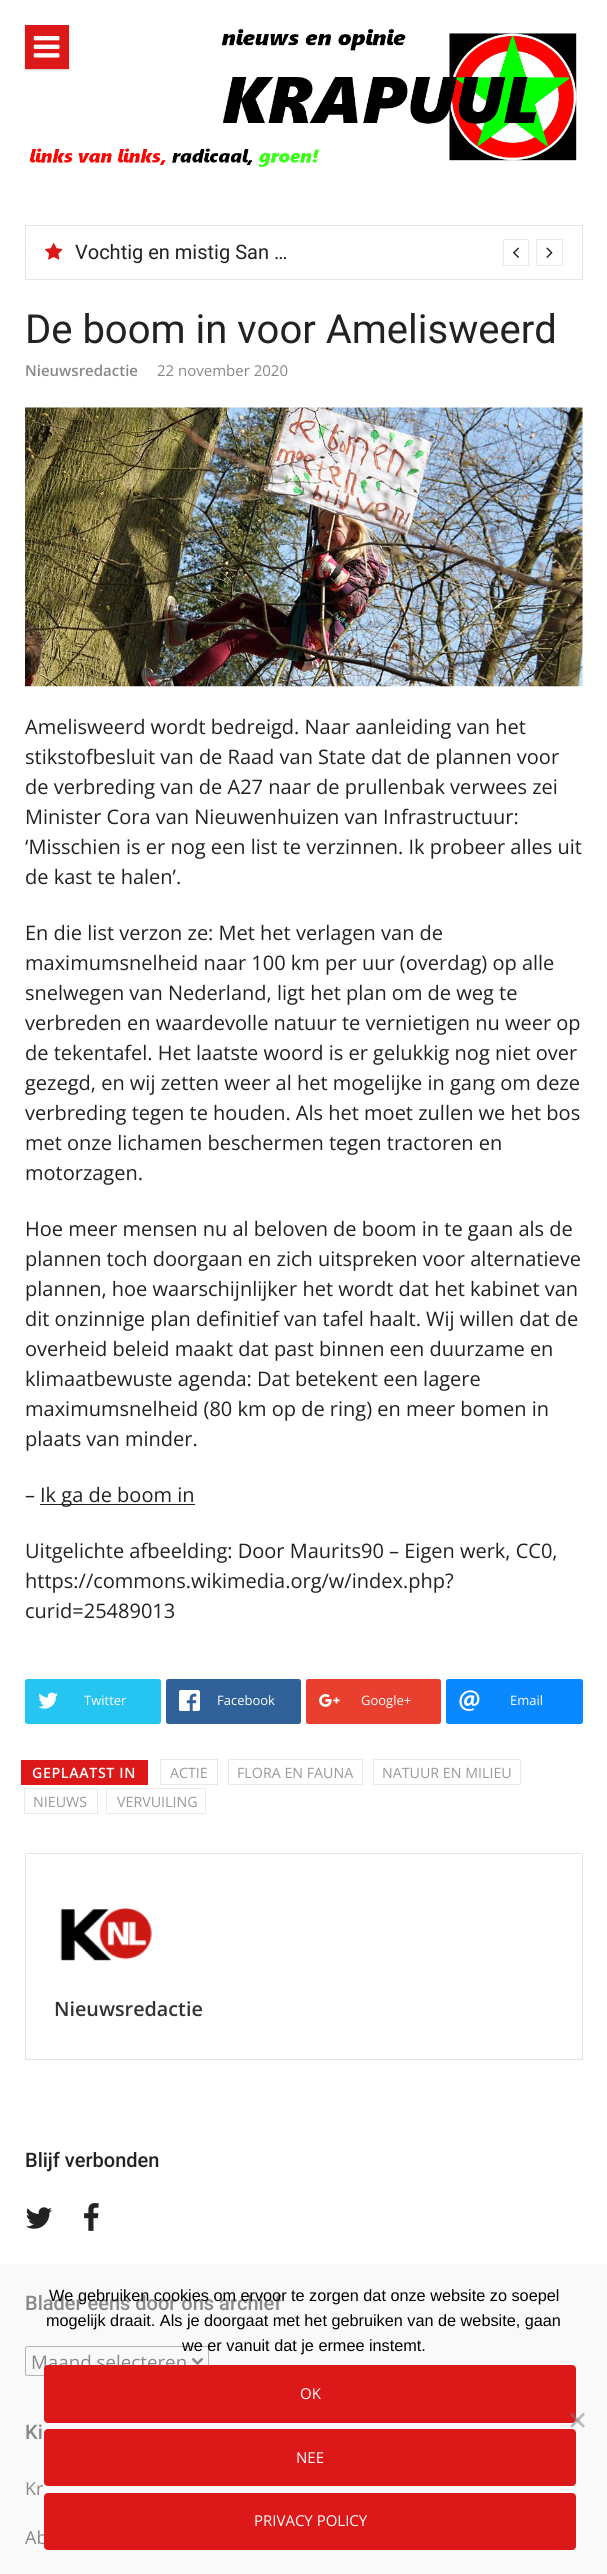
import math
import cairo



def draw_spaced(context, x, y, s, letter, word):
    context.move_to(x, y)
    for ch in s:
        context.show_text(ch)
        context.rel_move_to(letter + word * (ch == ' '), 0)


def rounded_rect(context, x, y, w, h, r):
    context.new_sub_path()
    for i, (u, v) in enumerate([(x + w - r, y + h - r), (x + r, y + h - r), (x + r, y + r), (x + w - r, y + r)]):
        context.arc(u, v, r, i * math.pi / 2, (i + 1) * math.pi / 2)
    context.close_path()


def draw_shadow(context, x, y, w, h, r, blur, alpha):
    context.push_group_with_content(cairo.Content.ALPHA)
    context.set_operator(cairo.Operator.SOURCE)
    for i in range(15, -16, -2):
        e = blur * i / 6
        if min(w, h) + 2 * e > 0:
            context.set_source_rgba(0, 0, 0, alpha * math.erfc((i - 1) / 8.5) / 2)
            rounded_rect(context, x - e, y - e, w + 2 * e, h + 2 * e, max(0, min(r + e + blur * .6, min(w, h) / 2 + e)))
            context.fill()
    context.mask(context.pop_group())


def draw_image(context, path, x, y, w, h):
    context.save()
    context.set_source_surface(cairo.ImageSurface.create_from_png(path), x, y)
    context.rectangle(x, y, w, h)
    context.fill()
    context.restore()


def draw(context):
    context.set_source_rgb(1, 1, 1)
    context.paint()
    context.set_source_rgb(249 / 255, 249 / 255, 249 / 255)
    context.rectangle(0, 2264, 607, 310)
    context.fill()
    draw_image(context, "images/2.png", 29, 29, 548, 138)
    context.set_source_rgb(0, 0, 0)
    draw_shadow(context, 25, 26, 44, 44, 0, 1, 0.2)
    context.set_source_rgb(221 / 255, 24 / 255, 24 / 255)
    context.rectangle(25, 25, 44, 44)
    context.fill()
    draw_image(context, "images/1.png", 33, 36, 27, 22)
    context.rectangle(25.5, 225.5, 557, 54)
    context.set_source_rgb(230 / 255, 230 / 255, 230 / 255)
    context.set_line_width(1)
    context.stroke()
    draw_image(context, "images/3.png", 45, 243, 18, 17)
    context.rectangle(503.5, 239.5, 25, 26)
    context.set_source_rgb(233 / 255, 233 / 255, 233 / 255)
    context.stroke()
    draw_image(context, "images/4.png", 513, 247, 6, 11)
    context.rectangle(536.5, 239.5, 26, 26)
    context.stroke()
    draw_image(context, "images/5.png", 546, 247, 7, 11)
    draw_image(context, "images/6.png", 25, 407, 558, 280)
    context.set_source_rgb(34 / 255, 34 / 255, 34 / 255)
    context.rectangle(40, 1504, 155, 1)
    context.fill()
    context.set_source_rgb(38 / 255, 196 / 255, 241 / 255)
    rounded_rect(context, 25, 1679, 136, 45, 2.5)
    context.fill()
    draw_image(context, "images/7.png", 38, 1692, 20, 17)
    context.set_source_rgb(48 / 255, 97 / 255, 153 / 255)
    rounded_rect(context, 166, 1679, 135, 45, 2.5)
    context.fill()
    draw_image(context, "images/8.png", 179, 1690, 21, 21)
    context.set_source_rgb(233 / 255, 63 / 255, 46 / 255)
    rounded_rect(context, 306, 1679, 135, 45, 2.5)
    context.fill()
    draw_image(context, "images/9.png", 319, 1694, 21, 13)
    context.set_source_rgb(10 / 255, 136 / 255, 1)
    rounded_rect(context, 446, 1679, 137, 45, 2.5)
    context.fill()
    draw_image(context, "images/10.png", 459, 1690, 21, 21)
    context.set_source_rgb(221 / 255, 24 / 255, 24 / 255)
    context.rectangle(21, 1760, 127, 25)
    context.fill()
    context.rectangle(160.5, 1759.5, 57, 25)
    context.set_source_rgb(233 / 255, 233 / 255, 233 / 255)
    context.stroke()
    context.rectangle(228.5, 1759.5, 134, 25)
    context.stroke()
    context.rectangle(373.5, 1759.5, 147, 25)
    context.stroke()
    context.rectangle(24.5, 1788.5, 73, 25)
    context.stroke()
    context.rectangle(106.5, 1788.5, 99, 25)
    context.stroke()
    context.rectangle(25.5, 1853.5, 557, 206)
    context.set_source_rgb(227 / 255, 227 / 255, 227 / 255)
    context.stroke()
    draw_image(context, "images/11.png", 60, 1907, 92, 54)
    draw_image(context, "images/12.png", 26, 2207, 26, 22)
    draw_image(context, "images/13.png", 84, 2203, 15, 28)
    rounded_rect(context, 25.5, 2346.5, 183, 29, 2)
    context.set_source_rgb(180 / 255, 180 / 255, 180 / 255)
    context.stroke()
    context.new_path()
    context.move_to(192.5, 2358.5)
    context.line_to(197.5, 2363.5)
    context.line_to(202.5, 2358.5)
    context.set_source_rgb(138 / 255, 138 / 255, 138 / 255)
    context.set_line_width(2.5)
    context.stroke()
    context.set_source_rgb(221 / 255, 24 / 255, 24 / 255)
    rounded_rect(context, 44.5, 2429.5, 531, 56, 3.5)
    context.fill_preserve()
    context.set_line_width(1)
    context.stroke()
    context.select_font_face("Roboto")
    context.set_font_size(20)
    context.set_source_rgb(34 / 255, 34 / 255, 34 / 255)
    context.move_to(75, 259)
    context.show_text("Vochtig en mistig San …")
    context.set_font_size(40)
    context.move_to(25, 343)
    context.show_text("De boom in voor Amelisweerd")
    context.select_font_face("Open Sans SemiBold")
    context.set_font_size(15)
    context.set_source_rgb(136 / 255, 136 / 255, 136 / 255)
    context.move_to(25, 376)
    context.show_text("Nieuwsredactie")
    context.select_font_face("Open Sans")
    context.move_to(157, 376)
    context.show_text("22 november 2020")
    context.set_font_size(20)
    context.set_source_rgb(34 / 255, 34 / 255, 34 / 255)
    context.move_to(25, 734)
    context.show_text("Amelisweerd wordt bedreigd. Naar aanleiding van het")
    context.move_to(25, 764)
    context.show_text("stikstofbesluit van de Raad van State dat de plannen voor")
    context.move_to(25, 794)
    context.show_text("de verbreding van de A27 naar de prullenbak verwees zei")
    context.move_to(25, 824)
    context.show_text("Minister Cora van Nieuwenhuizen van Infrastructuur:")
    context.move_to(25, 854)
    context.show_text("‘Misschien is er nog een list te verzinnen. Ik probeer alles uit")
    context.move_to(25, 884)
    context.show_text("de kast te halen’.")
    context.move_to(25, 940)
    context.show_text("En die list verzon ze: Met het verlagen van de")
    context.move_to(25, 970)
    context.show_text("maximumsnelheid naar 100 km per uur (overdag) op alle")
    context.move_to(25, 1000)
    context.show_text("snelwegen van Nederland, ligt het plan om de weg te")
    context.move_to(25, 1030)
    context.show_text("verbreden en waardevolle natuur te vernietigen nu weer op")
    context.move_to(25, 1060)
    context.show_text("de tekentafel. Het laatste woord is er gelukkig nog niet over")
    context.move_to(25, 1090)
    context.show_text("gezegd, en wij zetten weer al het mogelijke in gang om deze")
    context.move_to(25, 1120)
    context.show_text("verbreding tegen te houden. Als het moet zullen we het bos")
    context.move_to(25, 1150)
    context.show_text("met onze lichamen beschermen tegen tractoren en")
    context.move_to(25, 1180)
    context.show_text("motorzagen.")
    context.move_to(25, 1236)
    context.show_text("Hoe meer mensen nu al beloven de boom in te gaan als de")
    context.move_to(25, 1266)
    context.show_text("plannen toch doorgaan en zich uitspreken voor alternatieve")
    context.move_to(25, 1296)
    context.show_text("plannen, hoe waarschijnlijker het wordt dat het kabinet van")
    context.move_to(25, 1326)
    context.show_text("dit onzinnige plan definitief van tafel haalt. Wij willen dat de")
    context.move_to(25, 1356)
    context.show_text("overheid beleid maakt dat past binnen een duurzame en")
    context.move_to(25, 1386)
    context.show_text("klimaatbewuste agenda: Dat betekent een lagere")
    context.move_to(25, 1416)
    context.show_text("maximumsnelheid (80 km op de ring) en meer bomen in")
    context.move_to(25, 1446)
    context.show_text("plaats van minder.")
    context.move_to(25, 1502)
    context.show_text("–")
    context.move_to(40, 1502)
    context.show_text("Ik ga de boom in")
    context.move_to(25, 1558)
    context.show_text("Uitgelichte afbeelding: Door Maurits90 – Eigen werk, CC0,")
    context.move_to(25, 1588)
    context.show_text("https://commons.wikimedia.org/w/index.php?")
    context.move_to(25, 1618)
    context.show_text("curid=25489013")
    context.set_font_size(13)
    context.set_source_rgb(1, 1, 1)
    context.move_to(84, 1705)
    context.show_text("Twitter")
    context.move_to(217, 1705)
    context.show_text("Facebook")
    context.move_to(361, 1705)
    context.show_text("Google+")
    context.move_to(510, 1705)
    context.show_text("Email")
    context.select_font_face("Open Sans SemiBold")
    context.set_font_size(14.25)
    draw_spaced(context, 32, 1778, "GEPLAATST IN", 0.6, 0)
    context.select_font_face("Open Sans")
    context.set_source_rgb(153 / 255, 153 / 255, 153 / 255)
    context.move_to(170, 1778)
    context.show_text("ACTIE")
    context.move_to(237, 1778)
    context.show_text("FLORA EN FAUNA")
    context.move_to(382, 1778)
    context.show_text("NATUUR EN MILIEU")
    context.move_to(33, 1807)
    context.show_text("NIEUWS")
    context.move_to(117, 1807)
    context.show_text("VERVUILING")
    context.select_font_face("Open Sans SemiBold")
    context.set_font_size(19.75)
    context.set_source_rgb(51 / 255, 51 / 255, 51 / 255)
    context.move_to(54, 2016)
    context.show_text("Nieuwsredactie")
    context.select_font_face("Roboto Medium")
    context.set_font_size(20)
    context.set_source_rgb(34 / 255, 34 / 255, 34 / 255)
    context.move_to(25, 2167)
    context.show_text("Blijf verbonden")
    context.set_source_rgb(136 / 255, 136 / 255, 136 / 255)
    context.move_to(25, 2310)
    context.show_text("Blader eens door ons archief")
    context.select_font_face("Open Sans")
    context.set_font_size(18.75)
    context.move_to(31, 2369)
    context.show_text("Maand selecteren")
    context.select_font_face("Roboto Medium")
    context.set_font_size(20)
    context.move_to(25, 2439)
    context.show_text("Ki")
    context.select_font_face("Open Sans")
    context.set_font_size(18)
    context.move_to(25, 2495)
    context.show_text("Kr")
    context.move_to(25, 2544)
    context.show_text("Ab")
    context.select_font_face("Liberation Sans")
    context.set_font_size(16.25)
    context.set_source_rgb(0, 0, 0)
    context.move_to(49, 2301)
    context.show_text("We gebruiken cookies om ervoor te zorgen dat onze website zo soepel")
    context.move_to(46, 2326)
    context.show_text("mogelijk draait. Als je doorgaat met het gebruiken van de website, gaan")
    context.move_to(182, 2351)
    context.show_text("we er vanuit dat je ermee instemt.")
    context.set_source_rgb(221 / 255, 24 / 255, 24 / 255)
    rounded_rect(context, 44.5, 2365.5, 531, 57, 3.5)
    context.fill_preserve()
    context.stroke()
    context.select_font_face("Open Sans")
    context.set_font_size(15)
    context.set_source_rgb(1, 1, 1)
    context.move_to(300, 2399)
    context.show_text("OK")
    context.move_to(296, 2463)
    context.show_text("NEE")
    context.set_source_rgb(221 / 255, 24 / 255, 24 / 255)
    rounded_rect(context, 44.5, 2493.5, 531, 56, 3.5)
    context.fill_preserve()
    context.stroke()
    context.set_source_rgb(1, 1, 1)
    context.move_to(254, 2526)
    context.show_text("PRIVACY POLICY")
    context.set_source_rgba(128 / 255, 128 / 255, 128 / 255, 0.5)
    context.new_path()
    context.move_to(583, 2412.5)
    context.line_to(585, 2414.5)
    context.line_to(572, 2428)
    context.line_to(570, 2426)
    context.close_path()
    context.fill()
    context.new_path()
    context.move_to(570, 2414.5)
    context.line_to(572, 2412.5)
    context.line_to(585, 2426)
    context.line_to(583, 2428)
    context.close_path()
    context.fill()


surface = cairo.ImageSurface(cairo.Format.RGB24, 607, 2574)
context = cairo.Context(surface)
options = cairo.FontOptions()
options.set_hint_metrics(cairo.HintMetrics.OFF)
options.set_hint_style(cairo.HintStyle.NONE)
context.set_font_options(options)
context.set_miter_limit(4)
draw(context)
surface.write_to_png("out.png")
